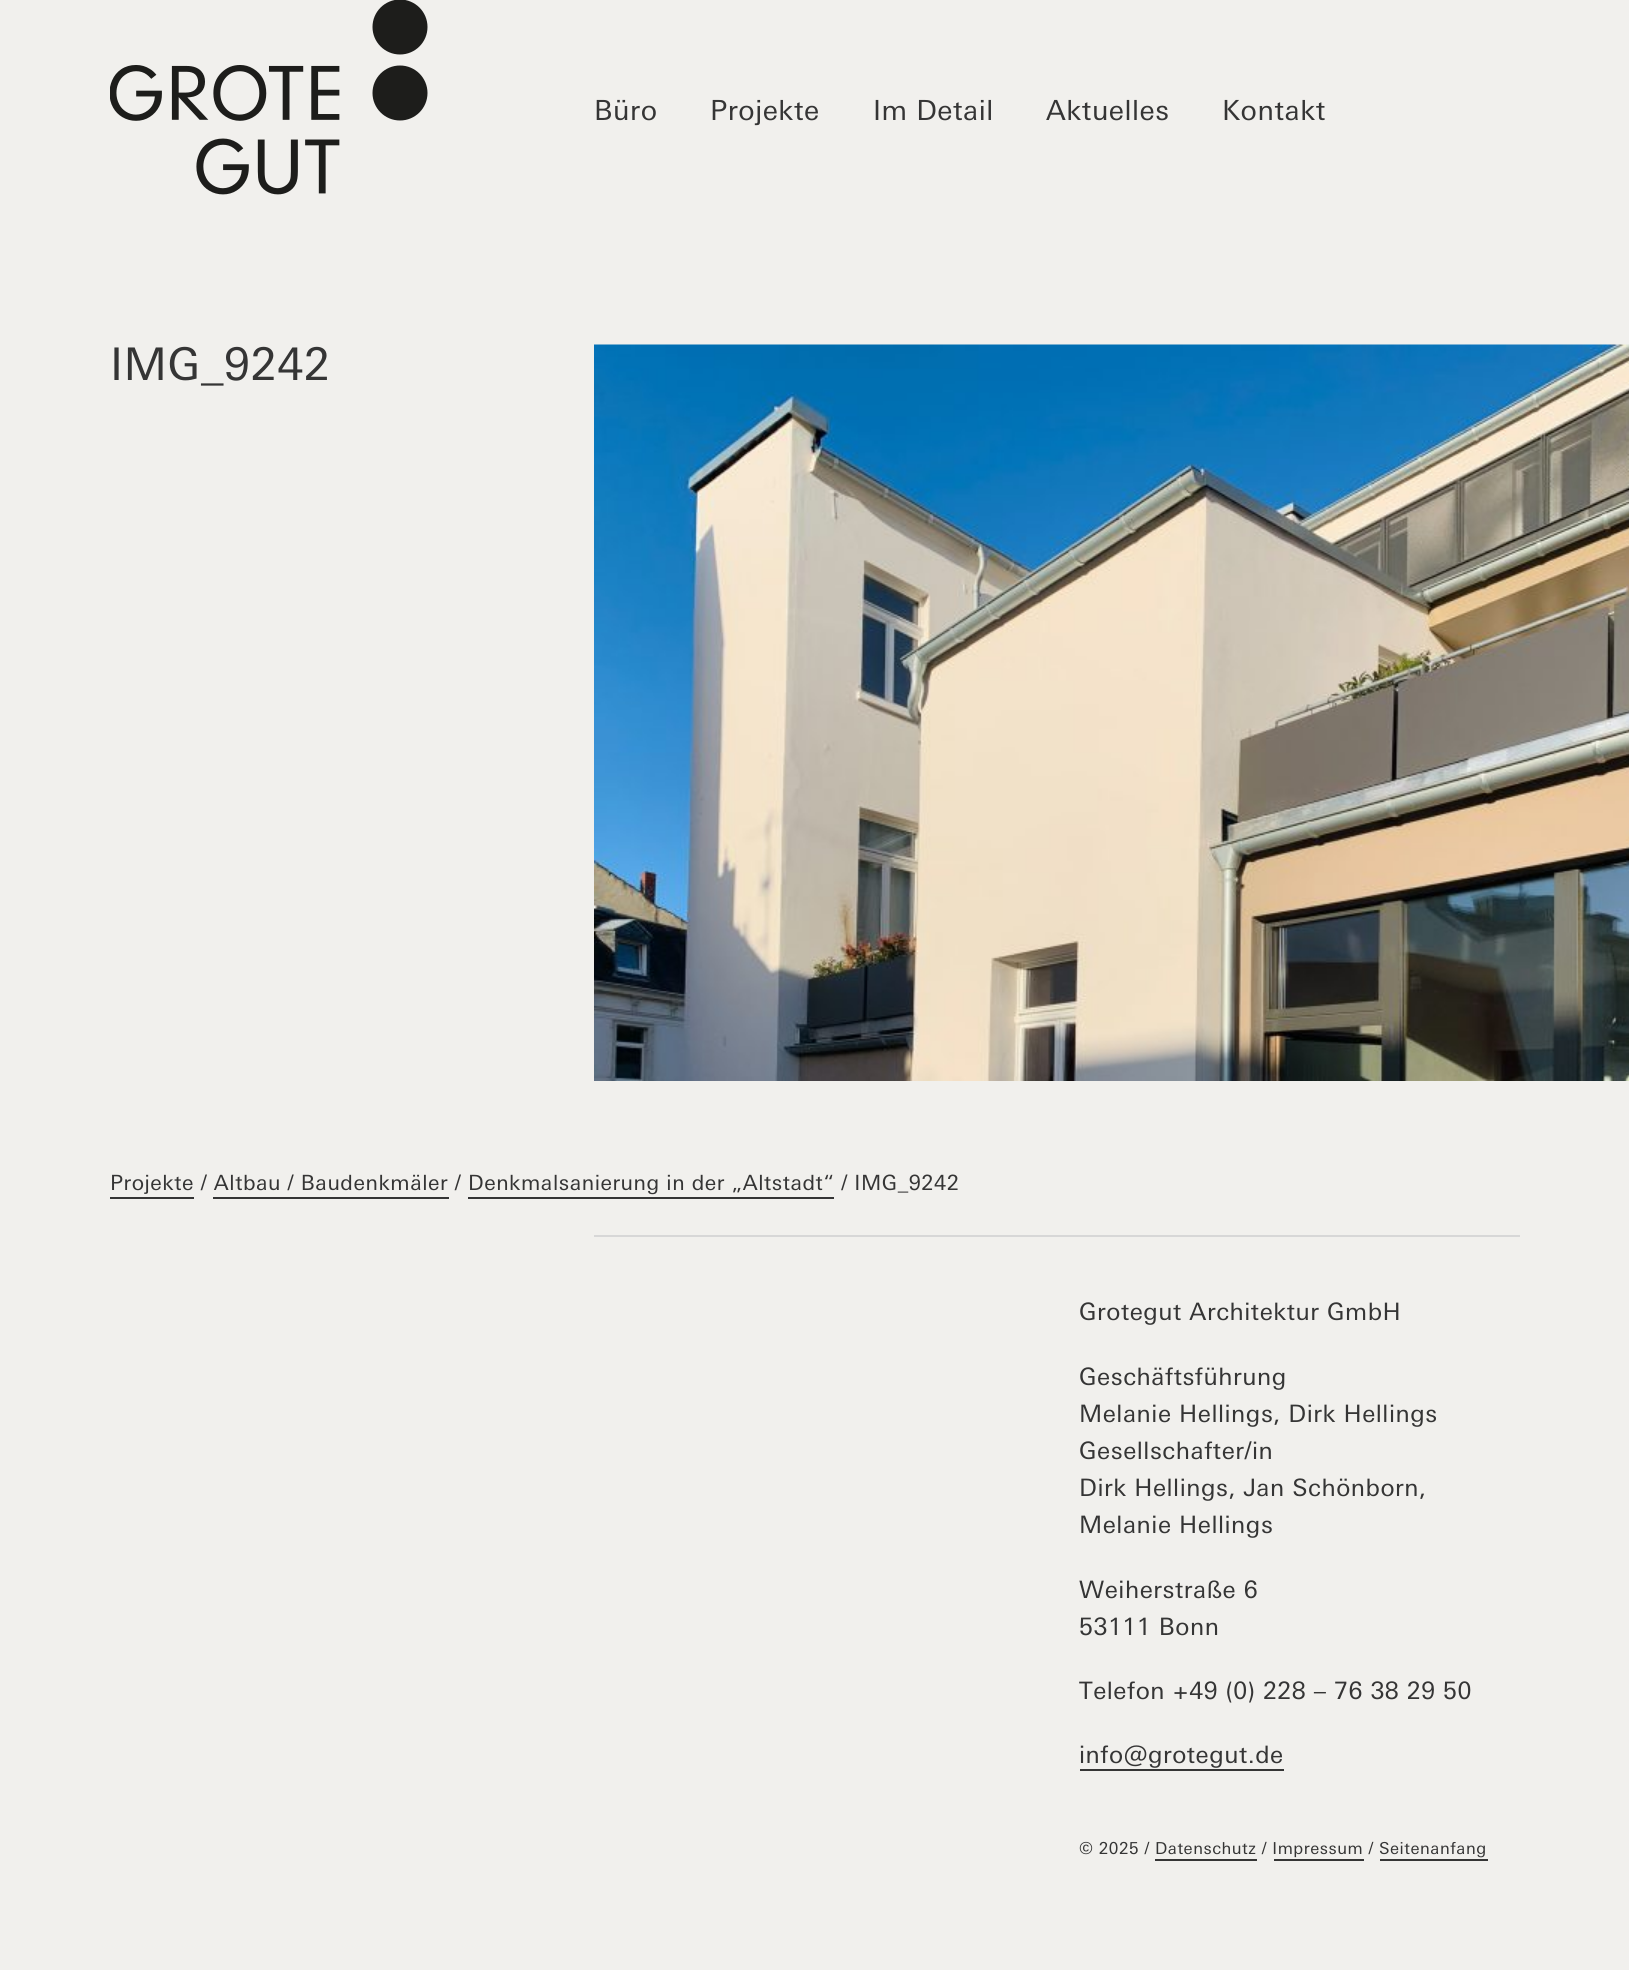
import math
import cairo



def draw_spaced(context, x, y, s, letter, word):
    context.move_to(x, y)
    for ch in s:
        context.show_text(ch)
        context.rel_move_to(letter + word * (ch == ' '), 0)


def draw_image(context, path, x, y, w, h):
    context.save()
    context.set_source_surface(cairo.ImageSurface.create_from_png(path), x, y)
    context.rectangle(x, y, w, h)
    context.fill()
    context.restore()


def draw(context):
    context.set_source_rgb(241 / 255, 240 / 255, 237 / 255)
    context.paint()
    draw_image(context, "images/1.png", 110, 0, 318, 195)
    draw_image(context, "images/2.png", 594, 344, 1035, 737)
    context.set_source_rgb(53 / 255, 53 / 255, 53 / 255)
    context.rectangle(110, 1197, 84, 2)
    context.fill()
    context.rectangle(213, 1197, 236, 2)
    context.fill()
    context.rectangle(468, 1197, 366, 2)
    context.fill()
    context.set_source_rgb(215 / 255, 215 / 255, 215 / 255)
    context.rectangle(594, 1235, 926, 2)
    context.fill()
    context.set_source_rgb(53 / 255, 53 / 255, 53 / 255)
    context.rectangle(1080, 1769, 204, 2)
    context.fill()
    context.rectangle(1155, 1859, 102, 2)
    context.fill()
    context.rectangle(1274, 1859, 90, 2)
    context.fill()
    context.rectangle(1380, 1859, 108, 2)
    context.fill()
    context.select_font_face("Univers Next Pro")
    context.set_font_size(27.75)
    draw_spaced(context, 594, 120, "Büro", 0.52, 0)
    draw_spaced(context, 710, 120, "Projekte", 0.52, 0)
    draw_spaced(context, 873, 120, "Im Detail", 0.52, 0)
    draw_spaced(context, 1046, 120, "Aktuelles", 0.52, 0)
    draw_spaced(context, 1222, 120, "Kontakt", 0.52, 0)
    context.set_font_size(45)
    draw_spaced(context, 110, 380, "IMG_9242", 0.52, 0)
    context.set_font_size(21)
    draw_spaced(context, 110, 1190, "Projekte / Altbau / Baudenkmäler / Denkmalsanierung in der „Altstadt“ / IMG_9242", 0.52, 0)
    context.set_font_size(24)
    draw_spaced(context, 1079, 1320, "Grotegut Architektur GmbH", 0.52, 0)
    draw_spaced(context, 1079, 1385, "Geschäftsführung", 0.52, 0)
    draw_spaced(context, 1079, 1422, "Melanie Hellings, Dirk Hellings", 0.52, 0)
    draw_spaced(context, 1079, 1459, "Gesellschafter/in", 0.52, 0)
    draw_spaced(context, 1079, 1496, "Dirk Hellings, Jan Schönborn,", 0.52, 0)
    draw_spaced(context, 1079, 1533, "Melanie Hellings", 0.52, 0)
    draw_spaced(context, 1079, 1598, "Weiherstraße 6", 0.52, 0)
    draw_spaced(context, 1079, 1635, "53111 Bonn", 0.52, 0)
    draw_spaced(context, 1079, 1699, "Telefon +49 (0) 228 – 76 38 29 50", 0.52, 0)
    draw_spaced(context, 1079, 1763, "info@grotegut.de", 0.52, 0)
    context.set_font_size(16.5)
    draw_spaced(context, 1079, 1854, "© 2025 / Datenschutz / Impressum / Seitenanfang", 0.52, 0)


surface = cairo.ImageSurface(cairo.Format.RGB24, 1629, 1970)
context = cairo.Context(surface)
options = cairo.FontOptions()
options.set_hint_metrics(cairo.HintMetrics.OFF)
options.set_hint_style(cairo.HintStyle.NONE)
context.set_font_options(options)
context.set_miter_limit(4)
draw(context)
surface.write_to_png("out.png")
